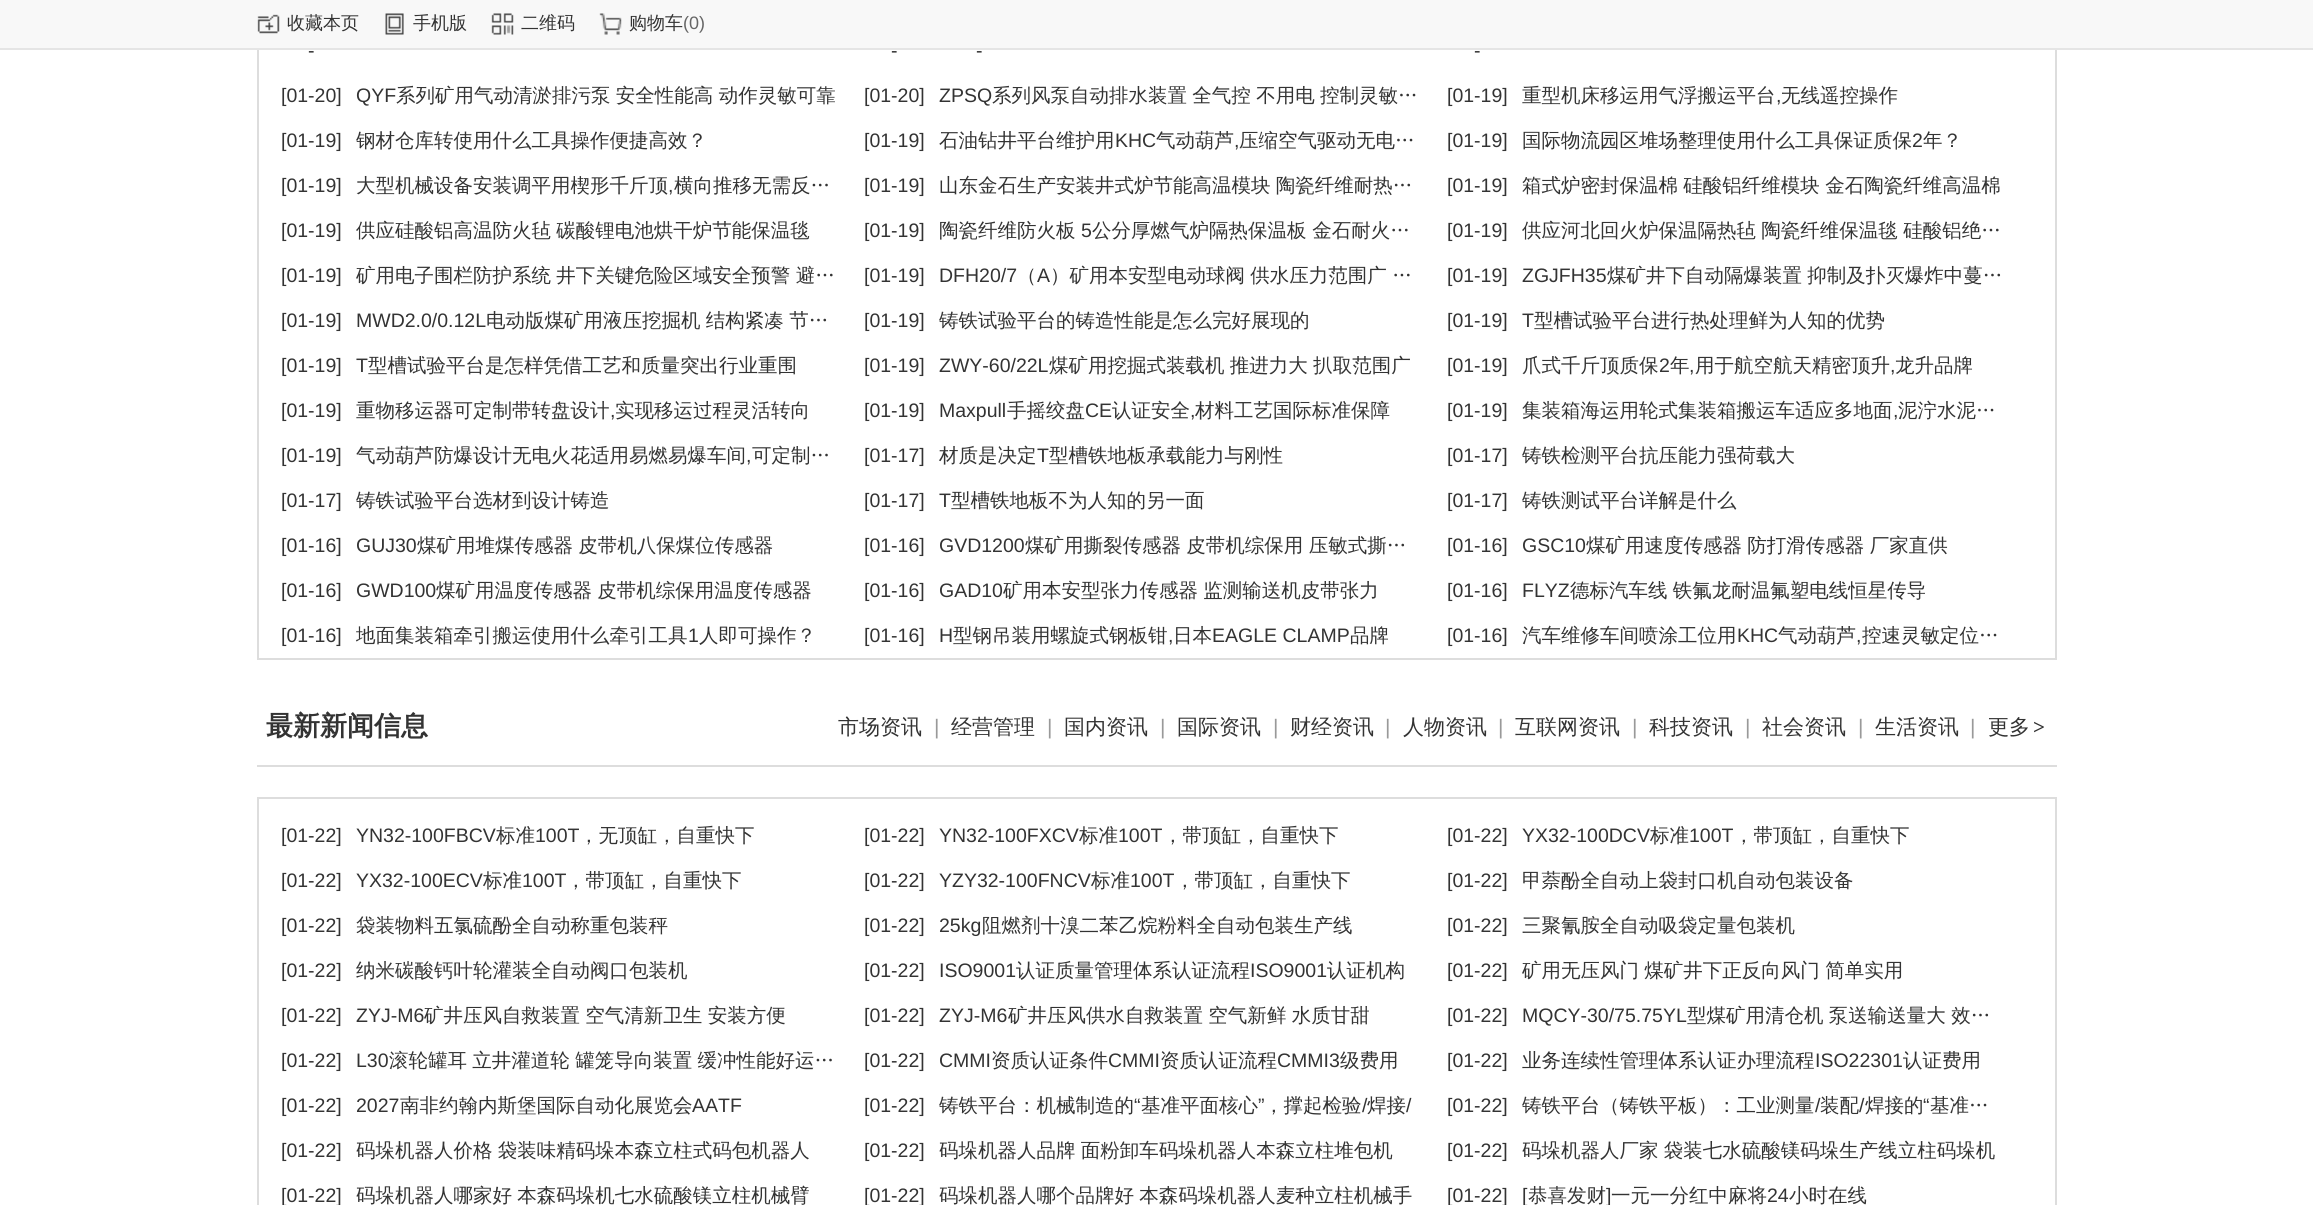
import math
import cairo



def draw_spaced(context, x, y, s, letter, word):
    context.move_to(x, y)
    for ch in s:
        context.show_text(ch)
        context.rel_move_to(letter + word * (ch == ' '), 0)


def draw_image(context, path, x, y, w, h):
    context.save()
    context.set_source_surface(cairo.ImageSurface.create_from_png(path), x, y)
    context.rectangle(x, y, w, h)
    context.fill()
    context.restore()


def draw(context):
    context.set_source_rgb(1, 1, 1)
    context.paint()
    context.rectangle(258, -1, 1798, 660)
    context.set_source_rgb(221 / 255, 221 / 255, 221 / 255)
    context.stroke()
    context.set_source_rgb(248 / 255, 248 / 255, 248 / 255)
    context.rectangle(0, 0, 2313, 48)
    context.fill()
    context.set_source_rgb(229 / 255, 229 / 255, 229 / 255)
    context.rectangle(0, 48, 2313, 2)
    context.fill()
    draw_image(context, "images/1.png", 257, 14, 23, 20)
    draw_image(context, "images/2.png", 385, 13, 19, 22)
    draw_image(context, "images/3.png", 491, 13, 23, 22)
    draw_image(context, "images/4.png", 599, 13, 23, 22)
    context.set_source_rgb(221 / 255, 221 / 255, 221 / 255)
    context.rectangle(257, 765, 1800, 2)
    context.fill()
    context.rectangle(258, 798, 1798, 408)
    context.stroke()
    context.select_font_face("WenQuanYi Zen Hei Medium")
    context.set_font_size(18)
    context.set_source_rgb(51 / 255, 51 / 255, 51 / 255)
    context.move_to(287, 29)
    context.show_text("收藏本页")
    context.move_to(413, 29)
    context.show_text("手机版")
    context.move_to(521, 29)
    context.show_text("二维码")
    context.move_to(629, 29)
    context.show_text("购物车")
    context.select_font_face("Liberation Sans")
    context.set_source_rgb(102 / 255, 102 / 255, 102 / 255)
    context.move_to(683, 29)
    context.show_text("(0)")
    context.set_font_size(19.5)
    context.set_source_rgb(51 / 255, 51 / 255, 51 / 255)
    context.move_to(308, 57)
    context.show_text("-")
    context.move_to(891, 57)
    context.show_text("-")
    context.move_to(976, 57)
    context.show_text("-")
    context.move_to(1474, 57)
    context.show_text("-")
    context.move_to(281, 102)
    context.show_text("[01-20]")
    context.move_to(356, 102)
    context.show_text("QYF")
    context.select_font_face("WenQuanYi Zen Hei Medium")
    draw_spaced(context, 396, 102, "系列矿用气动清淤排污泵 安全性能高 动作灵敏可靠", 0, -0.5)
    context.select_font_face("Liberation Sans")
    context.move_to(864, 102)
    context.show_text("[01-20]")
    context.move_to(939, 102)
    context.show_text("ZPSQ")
    context.select_font_face("WenQuanYi Zen Hei Medium")
    draw_spaced(context, 992, 102, "系列风泵自动排水装置 全气控 不用电 控制灵敏…", 0, -0.5)
    context.select_font_face("Liberation Sans")
    context.move_to(1447, 102)
    context.show_text("[01-19]")
    context.select_font_face("WenQuanYi Zen Hei Medium")
    context.move_to(1522, 102)
    context.show_text("重型机床移运用气浮搬运平台")
    context.select_font_face("Liberation Sans")
    context.move_to(1776, 102)
    context.show_text(",")
    context.select_font_face("WenQuanYi Zen Hei Medium")
    context.move_to(1781, 102)
    context.show_text("无线遥控操作")
    context.select_font_face("Liberation Sans")
    context.move_to(281, 147)
    context.show_text("[01-19]")
    context.select_font_face("WenQuanYi Zen Hei Medium")
    context.move_to(356, 147)
    context.show_text("钢材仓库转使用什么工具操作便捷高效？")
    context.select_font_face("Liberation Sans")
    context.move_to(864, 147)
    context.show_text("[01-19]")
    context.select_font_face("WenQuanYi Zen Hei Medium")
    context.move_to(939, 147)
    context.show_text("石油钻井平台维护用")
    context.select_font_face("Liberation Sans")
    context.move_to(1115, 147)
    context.show_text("KHC")
    context.select_font_face("WenQuanYi Zen Hei Medium")
    context.move_to(1156, 147)
    context.show_text("气动葫芦")
    context.select_font_face("Liberation Sans")
    context.move_to(1234, 147)
    context.show_text(",")
    context.select_font_face("WenQuanYi Zen Hei Medium")
    context.move_to(1239, 147)
    context.show_text("压缩空气驱动无电…")
    context.select_font_face("Liberation Sans")
    context.move_to(1447, 147)
    context.show_text("[01-19]")
    context.select_font_face("WenQuanYi Zen Hei Medium")
    context.move_to(1522, 147)
    context.show_text("国际物流园区堆场整理使用什么工具保证质保")
    context.select_font_face("Liberation Sans")
    context.move_to(1912, 147)
    context.show_text("2")
    context.select_font_face("WenQuanYi Zen Hei Medium")
    context.move_to(1923, 147)
    context.show_text("年？")
    context.select_font_face("Liberation Sans")
    context.move_to(281, 192)
    context.show_text("[01-19]")
    context.select_font_face("WenQuanYi Zen Hei Medium")
    context.move_to(356, 192)
    context.show_text("大型机械设备安装调平用楔形千斤顶")
    context.select_font_face("Liberation Sans")
    context.move_to(668, 192)
    context.show_text(",")
    context.select_font_face("WenQuanYi Zen Hei Medium")
    context.move_to(674, 192)
    context.show_text("横向推移无需反…")
    context.select_font_face("Liberation Sans")
    context.move_to(864, 192)
    context.show_text("[01-19]")
    context.select_font_face("WenQuanYi Zen Hei Medium")
    draw_spaced(context, 939, 192, "山东金石生产安装井式炉节能高温模块 陶瓷纤维耐热…", 0, -0.5)
    context.select_font_face("Liberation Sans")
    context.move_to(1447, 192)
    context.show_text("[01-19]")
    context.select_font_face("WenQuanYi Zen Hei Medium")
    draw_spaced(context, 1522, 192, "箱式炉密封保温棉 硅酸铝纤维模块 金石陶瓷纤维高温棉", 0, -0.5)
    context.select_font_face("Liberation Sans")
    context.move_to(281, 237)
    context.show_text("[01-19]")
    context.select_font_face("WenQuanYi Zen Hei Medium")
    draw_spaced(context, 356, 237, "供应硅酸铝高温防火毡 碳酸锂电池烘干炉节能保温毯", 0, -0.5)
    context.select_font_face("Liberation Sans")
    context.move_to(864, 237)
    context.show_text("[01-19]")
    context.select_font_face("WenQuanYi Zen Hei Medium")
    context.move_to(939, 237)
    context.show_text("陶瓷纤维防火板")
    context.select_font_face("Liberation Sans")
    context.move_to(1081, 237)
    context.show_text("5")
    context.select_font_face("WenQuanYi Zen Hei Medium")
    context.move_to(1092, 237)
    context.show_text("公分厚燃气炉隔热保温板 金石耐火…")
    context.select_font_face("Liberation Sans")
    context.move_to(1447, 237)
    context.show_text("[01-19]")
    context.select_font_face("WenQuanYi Zen Hei Medium")
    draw_spaced(context, 1522, 237, "供应河北回火炉保温隔热毡 陶瓷纤维保温毯 硅酸铝绝…", 0, -0.5)
    context.select_font_face("Liberation Sans")
    context.move_to(281, 282)
    context.show_text("[01-19]")
    context.select_font_face("WenQuanYi Zen Hei Medium")
    draw_spaced(context, 356, 282, "矿用电子围栏防护系统 井下关键危险区域安全预警 避…", 0, -0.5)
    context.select_font_face("Liberation Sans")
    context.move_to(864, 282)
    context.show_text("[01-19]")
    context.move_to(939, 282)
    context.show_text("DFH20/7")
    context.select_font_face("WenQuanYi Zen Hei Medium")
    context.move_to(1017, 282)
    context.show_text("（")
    context.select_font_face("Liberation Sans")
    context.move_to(1037, 282)
    context.show_text("A")
    context.select_font_face("WenQuanYi Zen Hei Medium")
    draw_spaced(context, 1050, 282, "）矿用本安型电动球阀 供水压力范围广 …", 0, -0.5)
    context.select_font_face("Liberation Sans")
    context.move_to(1447, 282)
    context.show_text("[01-19]")
    context.move_to(1522, 282)
    context.show_text("ZGJFH35")
    context.select_font_face("WenQuanYi Zen Hei Medium")
    draw_spaced(context, 1607, 282, "煤矿井下自动隔爆装置 抑制及扑灭爆炸中蔓…", 0, -0.5)
    context.select_font_face("Liberation Sans")
    context.move_to(281, 327)
    context.show_text("[01-19]")
    context.move_to(356, 327)
    context.show_text("MWD2.0/0.12L")
    context.select_font_face("WenQuanYi Zen Hei Medium")
    draw_spaced(context, 486, 327, "电动版煤矿用液压挖掘机 结构紧凑 节…", 0, -0.5)
    context.select_font_face("Liberation Sans")
    context.move_to(864, 327)
    context.show_text("[01-19]")
    context.select_font_face("WenQuanYi Zen Hei Medium")
    context.move_to(939, 327)
    context.show_text("铸铁试验平台的铸造性能是怎么完好展现的")
    context.select_font_face("Liberation Sans")
    context.move_to(1447, 327)
    context.show_text("[01-19]")
    context.move_to(1522, 327)
    context.show_text("T")
    context.select_font_face("WenQuanYi Zen Hei Medium")
    context.move_to(1534, 327)
    context.show_text("型槽试验平台进行热处理鲜为人知的优势")
    context.select_font_face("Liberation Sans")
    context.move_to(281, 372)
    context.show_text("[01-19]")
    context.move_to(356, 372)
    context.show_text("T")
    context.select_font_face("WenQuanYi Zen Hei Medium")
    context.move_to(368, 372)
    context.show_text("型槽试验平台是怎样凭借工艺和质量突出行业重围")
    context.select_font_face("Liberation Sans")
    context.move_to(864, 372)
    context.show_text("[01-19]")
    context.move_to(939, 372)
    context.show_text("ZWY-60/22L")
    context.select_font_face("WenQuanYi Zen Hei Medium")
    draw_spaced(context, 1049, 372, "煤矿用挖掘式装载机 推进力大 扒取范围广", 0, -0.5)
    context.select_font_face("Liberation Sans")
    context.move_to(1447, 372)
    context.show_text("[01-19]")
    context.select_font_face("WenQuanYi Zen Hei Medium")
    context.move_to(1522, 372)
    context.show_text("爪式千斤顶质保")
    context.select_font_face("Liberation Sans")
    context.move_to(1659, 372)
    context.show_text("2")
    context.select_font_face("WenQuanYi Zen Hei Medium")
    context.move_to(1670, 372)
    context.show_text("年")
    context.select_font_face("Liberation Sans")
    context.move_to(1689, 372)
    context.show_text(",")
    context.select_font_face("WenQuanYi Zen Hei Medium")
    context.move_to(1695, 372)
    context.show_text("用于航空航天精密顶升")
    context.select_font_face("Liberation Sans")
    context.move_to(1890, 372)
    context.show_text(",")
    context.select_font_face("WenQuanYi Zen Hei Medium")
    context.move_to(1895, 372)
    context.show_text("龙升品牌")
    context.select_font_face("Liberation Sans")
    context.move_to(281, 417)
    context.show_text("[01-19]")
    context.select_font_face("WenQuanYi Zen Hei Medium")
    context.move_to(356, 417)
    context.show_text("重物移运器可定制带转盘设计")
    context.select_font_face("Liberation Sans")
    context.move_to(610, 417)
    context.show_text(",")
    context.select_font_face("WenQuanYi Zen Hei Medium")
    context.move_to(615, 417)
    context.show_text("实现移运过程灵活转向")
    context.select_font_face("Liberation Sans")
    context.move_to(864, 417)
    context.show_text("[01-19]")
    context.move_to(939, 417)
    context.show_text("Maxpull")
    context.select_font_face("WenQuanYi Zen Hei Medium")
    context.move_to(1007, 417)
    context.show_text("手摇绞盘")
    context.select_font_face("Liberation Sans")
    context.move_to(1085, 417)
    context.show_text("CE")
    context.select_font_face("WenQuanYi Zen Hei Medium")
    context.move_to(1112, 417)
    context.show_text("认证安全")
    context.select_font_face("Liberation Sans")
    context.move_to(1190, 417)
    context.show_text(",")
    context.select_font_face("WenQuanYi Zen Hei Medium")
    context.move_to(1195, 417)
    context.show_text("材料工艺国际标准保障")
    context.select_font_face("Liberation Sans")
    context.move_to(1447, 417)
    context.show_text("[01-19]")
    context.select_font_face("WenQuanYi Zen Hei Medium")
    context.move_to(1522, 417)
    context.show_text("集装箱海运用轮式集装箱搬运车适应多地面")
    context.select_font_face("Liberation Sans")
    context.move_to(1893, 417)
    context.show_text(",")
    context.select_font_face("WenQuanYi Zen Hei Medium")
    context.move_to(1898, 417)
    context.show_text("泥泞水泥…")
    context.select_font_face("Liberation Sans")
    context.move_to(281, 462)
    context.show_text("[01-19]")
    context.select_font_face("WenQuanYi Zen Hei Medium")
    context.move_to(356, 462)
    context.show_text("气动葫芦防爆设计无电火花适用易燃易爆车间")
    context.select_font_face("Liberation Sans")
    context.move_to(746, 462)
    context.show_text(",")
    context.select_font_face("WenQuanYi Zen Hei Medium")
    context.move_to(752, 462)
    context.show_text("可定制…")
    context.select_font_face("Liberation Sans")
    context.move_to(864, 462)
    context.show_text("[01-17]")
    context.select_font_face("WenQuanYi Zen Hei Medium")
    context.move_to(939, 462)
    context.show_text("材质是决定")
    context.select_font_face("Liberation Sans")
    context.move_to(1037, 462)
    context.show_text("T")
    context.select_font_face("WenQuanYi Zen Hei Medium")
    context.move_to(1049, 462)
    context.show_text("型槽铁地板承载能力与刚性")
    context.select_font_face("Liberation Sans")
    context.move_to(1447, 462)
    context.show_text("[01-17]")
    context.select_font_face("WenQuanYi Zen Hei Medium")
    context.move_to(1522, 462)
    context.show_text("铸铁检测平台抗压能力强荷载大")
    context.select_font_face("Liberation Sans")
    context.move_to(281, 507)
    context.show_text("[01-17]")
    context.select_font_face("WenQuanYi Zen Hei Medium")
    context.move_to(356, 507)
    context.show_text("铸铁试验平台选材到设计铸造")
    context.select_font_face("Liberation Sans")
    context.move_to(864, 507)
    context.show_text("[01-17]")
    context.move_to(939, 507)
    context.show_text("T")
    context.select_font_face("WenQuanYi Zen Hei Medium")
    context.move_to(951, 507)
    context.show_text("型槽铁地板不为人知的另一面")
    context.select_font_face("Liberation Sans")
    context.move_to(1447, 507)
    context.show_text("[01-17]")
    context.select_font_face("WenQuanYi Zen Hei Medium")
    context.move_to(1522, 507)
    context.show_text("铸铁测试平台详解是什么")
    context.select_font_face("Liberation Sans")
    context.move_to(281, 552)
    context.show_text("[01-16]")
    context.move_to(356, 552)
    context.show_text("GUJ30")
    context.select_font_face("WenQuanYi Zen Hei Medium")
    draw_spaced(context, 417, 552, "煤矿用堆煤传感器 皮带机八保煤位传感器", 0, -0.5)
    context.select_font_face("Liberation Sans")
    context.move_to(864, 552)
    context.show_text("[01-16]")
    context.move_to(939, 552)
    context.show_text("GVD1200")
    context.select_font_face("WenQuanYi Zen Hei Medium")
    draw_spaced(context, 1025, 552, "煤矿用撕裂传感器 皮带机综保用 压敏式撕…", 0, -0.5)
    context.select_font_face("Liberation Sans")
    context.move_to(1447, 552)
    context.show_text("[01-16]")
    context.move_to(1522, 552)
    context.show_text("GSC10")
    context.select_font_face("WenQuanYi Zen Hei Medium")
    draw_spaced(context, 1586, 552, "煤矿用速度传感器 防打滑传感器 厂家直供", 0, -0.5)
    context.select_font_face("Liberation Sans")
    context.move_to(281, 597)
    context.show_text("[01-16]")
    context.move_to(356, 597)
    context.show_text("GWD100")
    context.select_font_face("WenQuanYi Zen Hei Medium")
    draw_spaced(context, 436, 597, "煤矿用温度传感器 皮带机综保用温度传感器", 0, -0.5)
    context.select_font_face("Liberation Sans")
    context.move_to(864, 597)
    context.show_text("[01-16]")
    context.move_to(939, 597)
    context.show_text("GAD10")
    context.select_font_face("WenQuanYi Zen Hei Medium")
    draw_spaced(context, 1003, 597, "矿用本安型张力传感器 监测输送机皮带张力", 0, -0.5)
    context.select_font_face("Liberation Sans")
    context.move_to(1447, 597)
    context.show_text("[01-16]")
    context.move_to(1522, 597)
    context.show_text("FLYZ")
    context.select_font_face("WenQuanYi Zen Hei Medium")
    draw_spaced(context, 1570, 597, "德标汽车线 铁氟龙耐温氟塑电线恒星传导", 0, -0.5)
    context.select_font_face("Liberation Sans")
    context.move_to(281, 642)
    context.show_text("[01-16]")
    context.select_font_face("WenQuanYi Zen Hei Medium")
    context.move_to(356, 642)
    context.show_text("地面集装箱牵引搬运使用什么牵引工具")
    context.select_font_face("Liberation Sans")
    context.move_to(688, 642)
    context.show_text("1")
    context.select_font_face("WenQuanYi Zen Hei Medium")
    context.move_to(699, 642)
    context.show_text("人即可操作？")
    context.select_font_face("Liberation Sans")
    context.move_to(864, 642)
    context.show_text("[01-16]")
    context.move_to(939, 642)
    context.show_text("H")
    context.select_font_face("WenQuanYi Zen Hei Medium")
    context.move_to(953, 642)
    context.show_text("型钢吊装用螺旋式钢板钳")
    context.select_font_face("Liberation Sans")
    context.move_to(1168, 642)
    context.show_text(",")
    context.select_font_face("WenQuanYi Zen Hei Medium")
    context.move_to(1173, 642)
    context.show_text("日本")
    context.select_font_face("Liberation Sans")
    context.move_to(1212, 642)
    context.show_text("EAGLE CLAMP")
    context.select_font_face("WenQuanYi Zen Hei Medium")
    context.move_to(1350, 642)
    context.show_text("品牌")
    context.select_font_face("Liberation Sans")
    context.move_to(1447, 642)
    context.show_text("[01-16]")
    context.select_font_face("WenQuanYi Zen Hei Medium")
    context.move_to(1522, 642)
    context.show_text("汽车维修车间喷涂工位用")
    context.select_font_face("Liberation Sans")
    context.move_to(1737, 642)
    context.show_text("KHC")
    context.select_font_face("WenQuanYi Zen Hei Medium")
    context.move_to(1778, 642)
    context.show_text("气动葫芦")
    context.select_font_face("Liberation Sans")
    context.move_to(1856, 642)
    context.show_text(",")
    context.select_font_face("WenQuanYi Zen Hei Medium")
    context.move_to(1862, 642)
    context.show_text("控速灵敏定位…")
    context.select_font_face("WenQuanYi Zen Hei", cairo.FontSlant.NORMAL, cairo.FontWeight.BOLD)
    context.set_font_size(27)
    context.move_to(266, 735)
    context.show_text("最新新闻信息")
    context.select_font_face("WenQuanYi Zen Hei Medium")
    context.set_font_size(21)
    context.move_to(838, 734)
    context.show_text("市场资讯")
    context.select_font_face("Liberation Sans")
    context.set_source_rgb(153 / 255, 153 / 255, 153 / 255)
    context.move_to(934, 734)
    context.show_text("|")
    context.select_font_face("WenQuanYi Zen Hei Medium")
    context.set_source_rgb(51 / 255, 51 / 255, 51 / 255)
    context.move_to(951, 734)
    context.show_text("经营管理")
    context.select_font_face("Liberation Sans")
    context.set_source_rgb(153 / 255, 153 / 255, 153 / 255)
    context.move_to(1047, 734)
    context.show_text("|")
    context.select_font_face("WenQuanYi Zen Hei Medium")
    context.set_source_rgb(51 / 255, 51 / 255, 51 / 255)
    context.move_to(1064, 734)
    context.show_text("国内资讯")
    context.select_font_face("Liberation Sans")
    context.set_source_rgb(153 / 255, 153 / 255, 153 / 255)
    context.move_to(1160, 734)
    context.show_text("|")
    context.select_font_face("WenQuanYi Zen Hei Medium")
    context.set_source_rgb(51 / 255, 51 / 255, 51 / 255)
    context.move_to(1177, 734)
    context.show_text("国际资讯")
    context.select_font_face("Liberation Sans")
    context.set_source_rgb(153 / 255, 153 / 255, 153 / 255)
    context.move_to(1273, 734)
    context.show_text("|")
    context.select_font_face("WenQuanYi Zen Hei Medium")
    context.set_source_rgb(51 / 255, 51 / 255, 51 / 255)
    context.move_to(1290, 734)
    context.show_text("财经资讯")
    context.select_font_face("Liberation Sans")
    context.set_source_rgb(153 / 255, 153 / 255, 153 / 255)
    context.move_to(1385, 734)
    context.show_text("|")
    context.select_font_face("WenQuanYi Zen Hei Medium")
    context.set_source_rgb(51 / 255, 51 / 255, 51 / 255)
    context.move_to(1403, 734)
    context.show_text("人物资讯")
    context.select_font_face("Liberation Sans")
    context.set_source_rgb(153 / 255, 153 / 255, 153 / 255)
    context.move_to(1498, 734)
    context.show_text("|")
    context.select_font_face("WenQuanYi Zen Hei Medium")
    context.set_source_rgb(51 / 255, 51 / 255, 51 / 255)
    context.move_to(1515, 734)
    context.show_text("互联网资讯")
    context.select_font_face("Liberation Sans")
    context.set_source_rgb(153 / 255, 153 / 255, 153 / 255)
    context.move_to(1632, 734)
    context.show_text("|")
    context.select_font_face("WenQuanYi Zen Hei Medium")
    context.set_source_rgb(51 / 255, 51 / 255, 51 / 255)
    context.move_to(1649, 734)
    context.show_text("科技资讯")
    context.select_font_face("Liberation Sans")
    context.set_source_rgb(153 / 255, 153 / 255, 153 / 255)
    context.move_to(1745, 734)
    context.show_text("|")
    context.select_font_face("WenQuanYi Zen Hei Medium")
    context.set_source_rgb(51 / 255, 51 / 255, 51 / 255)
    context.move_to(1762, 734)
    context.show_text("社会资讯")
    context.select_font_face("Liberation Sans")
    context.set_source_rgb(153 / 255, 153 / 255, 153 / 255)
    context.move_to(1858, 734)
    context.show_text("|")
    context.select_font_face("WenQuanYi Zen Hei Medium")
    context.set_source_rgb(51 / 255, 51 / 255, 51 / 255)
    context.move_to(1875, 734)
    context.show_text("生活资讯")
    context.select_font_face("Liberation Sans")
    context.set_source_rgb(153 / 255, 153 / 255, 153 / 255)
    context.move_to(1970, 734)
    context.show_text("|")
    context.select_font_face("WenQuanYi Zen Hei Medium")
    context.set_source_rgb(51 / 255, 51 / 255, 51 / 255)
    context.move_to(1988, 734)
    context.show_text("更多")
    context.select_font_face("Liberation Serif", cairo.FontSlant.NORMAL, cairo.FontWeight.BOLD)
    context.move_to(2033, 734)
    context.show_text(">")
    context.select_font_face("Liberation Sans")
    context.set_font_size(19.5)
    context.move_to(281, 842)
    context.show_text("[01-22]")
    context.move_to(356, 842)
    context.show_text("YN32-100FBCV")
    context.select_font_face("WenQuanYi Zen Hei Medium")
    context.move_to(496, 842)
    context.show_text("标准")
    context.select_font_face("Liberation Sans")
    context.move_to(535, 842)
    context.show_text("100T")
    context.select_font_face("WenQuanYi Zen Hei Medium")
    context.move_to(579, 842)
    context.show_text("，无顶缸，自重快下")
    context.select_font_face("Liberation Sans")
    context.move_to(864, 842)
    context.show_text("[01-22]")
    context.move_to(939, 842)
    context.show_text("YN32-100FXCV")
    context.select_font_face("WenQuanYi Zen Hei Medium")
    context.move_to(1079, 842)
    context.show_text("标准")
    context.select_font_face("Liberation Sans")
    context.move_to(1118, 842)
    context.show_text("100T")
    context.select_font_face("WenQuanYi Zen Hei Medium")
    context.move_to(1163, 842)
    context.show_text("，带顶缸，自重快下")
    context.select_font_face("Liberation Sans")
    context.move_to(1447, 842)
    context.show_text("[01-22]")
    context.move_to(1522, 842)
    context.show_text("YX32-100DCV")
    context.select_font_face("WenQuanYi Zen Hei Medium")
    context.move_to(1650, 842)
    context.show_text("标准")
    context.select_font_face("Liberation Sans")
    context.move_to(1689, 842)
    context.show_text("100T")
    context.select_font_face("WenQuanYi Zen Hei Medium")
    context.move_to(1734, 842)
    context.show_text("，带顶缸，自重快下")
    context.select_font_face("Liberation Sans")
    context.move_to(281, 887)
    context.show_text("[01-22]")
    context.move_to(356, 887)
    context.show_text("YX32-100ECV")
    context.select_font_face("WenQuanYi Zen Hei Medium")
    context.move_to(483, 887)
    context.show_text("标准")
    context.select_font_face("Liberation Sans")
    context.move_to(522, 887)
    context.show_text("100T")
    context.select_font_face("WenQuanYi Zen Hei Medium")
    context.move_to(566, 887)
    context.show_text("，带顶缸，自重快下")
    context.select_font_face("Liberation Sans")
    context.move_to(864, 887)
    context.show_text("[01-22]")
    context.move_to(939, 887)
    context.show_text("YZY32-100FNCV")
    context.select_font_face("WenQuanYi Zen Hei Medium")
    context.move_to(1091, 887)
    context.show_text("标准")
    context.select_font_face("Liberation Sans")
    context.move_to(1130, 887)
    context.show_text("100T")
    context.select_font_face("WenQuanYi Zen Hei Medium")
    context.move_to(1175, 887)
    context.show_text("，带顶缸，自重快下")
    context.select_font_face("Liberation Sans")
    context.move_to(1447, 887)
    context.show_text("[01-22]")
    context.select_font_face("WenQuanYi Zen Hei Medium")
    context.move_to(1522, 887)
    context.show_text("甲萘酚全自动上袋封口机自动包装设备")
    context.select_font_face("Liberation Sans")
    context.move_to(281, 932)
    context.show_text("[01-22]")
    context.select_font_face("WenQuanYi Zen Hei Medium")
    context.move_to(356, 932)
    context.show_text("袋装物料五氯硫酚全自动称重包装秤")
    context.select_font_face("Liberation Sans")
    context.move_to(864, 932)
    context.show_text("[01-22]")
    context.move_to(939, 932)
    context.show_text("25kg")
    context.select_font_face("WenQuanYi Zen Hei Medium")
    context.move_to(982, 932)
    context.show_text("阻燃剂十溴二苯乙烷粉料全自动包装生产线")
    context.select_font_face("Liberation Sans")
    context.move_to(1447, 932)
    context.show_text("[01-22]")
    context.select_font_face("WenQuanYi Zen Hei Medium")
    context.move_to(1522, 932)
    context.show_text("三聚氰胺全自动吸袋定量包装机")
    context.select_font_face("Liberation Sans")
    context.move_to(281, 977)
    context.show_text("[01-22]")
    context.select_font_face("WenQuanYi Zen Hei Medium")
    context.move_to(356, 977)
    context.show_text("纳米碳酸钙叶轮灌装全自动阀口包装机")
    context.select_font_face("Liberation Sans")
    context.move_to(864, 977)
    context.show_text("[01-22]")
    context.move_to(939, 977)
    context.show_text("ISO9001")
    context.select_font_face("WenQuanYi Zen Hei Medium")
    context.move_to(1016, 977)
    context.show_text("认证质量管理体系认证流程")
    context.select_font_face("Liberation Sans")
    context.move_to(1250, 977)
    context.show_text("ISO9001")
    context.select_font_face("WenQuanYi Zen Hei Medium")
    context.move_to(1327, 977)
    context.show_text("认证机构")
    context.select_font_face("Liberation Sans")
    context.move_to(1447, 977)
    context.show_text("[01-22]")
    context.select_font_face("WenQuanYi Zen Hei Medium")
    draw_spaced(context, 1522, 977, "矿用无压风门 煤矿井下正反向风门 简单实用", 0, -0.5)
    context.select_font_face("Liberation Sans")
    context.move_to(281, 1022)
    context.show_text("[01-22]")
    context.move_to(356, 1022)
    context.show_text("ZYJ-M6")
    context.select_font_face("WenQuanYi Zen Hei Medium")
    draw_spaced(context, 424, 1022, "矿井压风自救装置 空气清新卫生 安装方便", 0, -0.5)
    context.select_font_face("Liberation Sans")
    context.move_to(864, 1022)
    context.show_text("[01-22]")
    context.move_to(939, 1022)
    context.show_text("ZYJ-M6")
    context.select_font_face("WenQuanYi Zen Hei Medium")
    draw_spaced(context, 1008, 1022, "矿井压风供水自救装置 空气新鲜 水质甘甜", 0, -0.5)
    context.select_font_face("Liberation Sans")
    context.move_to(1447, 1022)
    context.show_text("[01-22]")
    context.move_to(1522, 1022)
    context.show_text("MQCY-30/75.75YL")
    context.select_font_face("WenQuanYi Zen Hei Medium")
    draw_spaced(context, 1687, 1022, "型煤矿用清仓机 泵送输送量大 效…", 0, -0.5)
    context.select_font_face("Liberation Sans")
    context.move_to(281, 1067)
    context.show_text("[01-22]")
    context.move_to(356, 1067)
    context.show_text("L30")
    context.select_font_face("WenQuanYi Zen Hei Medium")
    draw_spaced(context, 389, 1067, "滚轮罐耳 立井灌道轮 罐笼导向装置 缓冲性能好运…", 0, -0.5)
    context.select_font_face("Liberation Sans")
    context.move_to(864, 1067)
    context.show_text("[01-22]")
    context.move_to(939, 1067)
    context.show_text("CMMI")
    context.select_font_face("WenQuanYi Zen Hei Medium")
    context.move_to(991, 1067)
    context.show_text("资质认证条件")
    context.select_font_face("Liberation Sans")
    context.move_to(1108, 1067)
    context.show_text("CMMI")
    context.select_font_face("WenQuanYi Zen Hei Medium")
    context.move_to(1160, 1067)
    context.show_text("资质认证流程")
    context.select_font_face("Liberation Sans")
    context.move_to(1277, 1067)
    context.show_text("CMMI3")
    context.select_font_face("WenQuanYi Zen Hei Medium")
    context.move_to(1340, 1067)
    context.show_text("级费用")
    context.select_font_face("Liberation Sans")
    context.move_to(1447, 1067)
    context.show_text("[01-22]")
    context.select_font_face("WenQuanYi Zen Hei Medium")
    context.move_to(1522, 1067)
    context.show_text("业务连续性管理体系认证办理流程")
    context.select_font_face("Liberation Sans")
    context.move_to(1815, 1067)
    context.show_text("ISO22301")
    context.select_font_face("WenQuanYi Zen Hei Medium")
    context.move_to(1903, 1067)
    context.show_text("认证费用")
    context.select_font_face("Liberation Sans")
    context.move_to(281, 1112)
    context.show_text("[01-22]")
    context.move_to(356, 1112)
    context.show_text("2027")
    context.select_font_face("WenQuanYi Zen Hei Medium")
    context.move_to(400, 1112)
    context.show_text("南非约翰内斯堡国际自动化展览会")
    context.select_font_face("Liberation Sans")
    context.move_to(692, 1112)
    context.show_text("AATF")
    context.move_to(864, 1112)
    context.show_text("[01-22]")
    context.select_font_face("WenQuanYi Zen Hei Medium")
    context.move_to(939, 1112)
    context.show_text("铸铁平台：机械制造的")
    context.select_font_face("Liberation Sans")
    context.move_to(1134, 1112)
    context.show_text("“")
    context.select_font_face("WenQuanYi Zen Hei Medium")
    context.move_to(1141, 1112)
    context.show_text("基准平面核心")
    context.select_font_face("Liberation Sans")
    context.move_to(1258, 1112)
    context.show_text("”")
    context.select_font_face("WenQuanYi Zen Hei Medium")
    context.move_to(1264, 1112)
    context.show_text("，撑起检验")
    context.select_font_face("Liberation Sans")
    context.move_to(1362, 1112)
    context.show_text("/")
    context.select_font_face("WenQuanYi Zen Hei Medium")
    context.move_to(1367, 1112)
    context.show_text("焊接")
    context.select_font_face("Liberation Sans")
    context.move_to(1406, 1112)
    context.show_text("/")
    context.move_to(1447, 1112)
    context.show_text("[01-22]")
    context.select_font_face("WenQuanYi Zen Hei Medium")
    context.move_to(1522, 1112)
    context.show_text("铸铁平台（铸铁平板）：工业测量")
    context.select_font_face("Liberation Sans")
    context.move_to(1815, 1112)
    context.show_text("/")
    context.select_font_face("WenQuanYi Zen Hei Medium")
    context.move_to(1820, 1112)
    context.show_text("装配")
    context.select_font_face("Liberation Sans")
    context.move_to(1859, 1112)
    context.show_text("/")
    context.select_font_face("WenQuanYi Zen Hei Medium")
    context.move_to(1865, 1112)
    context.show_text("焊接的")
    context.select_font_face("Liberation Sans")
    context.move_to(1923, 1112)
    context.show_text("“")
    context.select_font_face("WenQuanYi Zen Hei Medium")
    context.move_to(1930, 1112)
    context.show_text("基准…")
    context.select_font_face("Liberation Sans")
    context.move_to(281, 1157)
    context.show_text("[01-22]")
    context.select_font_face("WenQuanYi Zen Hei Medium")
    draw_spaced(context, 356, 1157, "码垛机器人价格 袋装味精码垛本森立柱式码包机器人", 0, -0.5)
    context.select_font_face("Liberation Sans")
    context.move_to(864, 1157)
    context.show_text("[01-22]")
    context.select_font_face("WenQuanYi Zen Hei Medium")
    draw_spaced(context, 939, 1157, "码垛机器人品牌 面粉卸车码垛机器人本森立柱堆包机", 0, -0.5)
    context.select_font_face("Liberation Sans")
    context.move_to(1447, 1157)
    context.show_text("[01-22]")
    context.select_font_face("WenQuanYi Zen Hei Medium")
    draw_spaced(context, 1522, 1157, "码垛机器人厂家 袋装七水硫酸镁码垛生产线立柱码垛机", 0, -0.5)
    context.select_font_face("Liberation Sans")
    context.move_to(281, 1202)
    context.show_text("[01-22]")
    context.select_font_face("WenQuanYi Zen Hei Medium")
    draw_spaced(context, 356, 1202, "码垛机器人哪家好 本森码垛机七水硫酸镁立柱机械臂", 0, -0.5)
    context.select_font_face("Liberation Sans")
    context.move_to(864, 1202)
    context.show_text("[01-22]")
    context.select_font_face("WenQuanYi Zen Hei Medium")
    draw_spaced(context, 939, 1202, "码垛机器人哪个品牌好 本森码垛机器人麦种立柱机械手", 0, -0.5)
    context.select_font_face("Liberation Sans")
    context.move_to(1447, 1202)
    context.show_text("[01-22]")
    context.move_to(1522, 1202)
    context.show_text("[")
    context.select_font_face("WenQuanYi Zen Hei Medium")
    context.move_to(1528, 1202)
    context.show_text("恭喜发财")
    context.select_font_face("Liberation Sans")
    context.move_to(1606, 1202)
    context.show_text("]")
    context.select_font_face("WenQuanYi Zen Hei Medium")
    context.move_to(1611, 1202)
    context.show_text("一元一分红中麻将")
    context.select_font_face("Liberation Sans")
    context.move_to(1767, 1202)
    context.show_text("24")
    context.select_font_face("WenQuanYi Zen Hei Medium")
    context.move_to(1789, 1202)
    context.show_text("小时在线")


surface = cairo.ImageSurface(cairo.Format.RGB24, 2313, 1205)
context = cairo.Context(surface)
options = cairo.FontOptions()
options.set_hint_metrics(cairo.HintMetrics.OFF)
options.set_hint_style(cairo.HintStyle.NONE)
context.set_font_options(options)
context.set_miter_limit(4)
draw(context)
surface.write_to_png("out.png")
